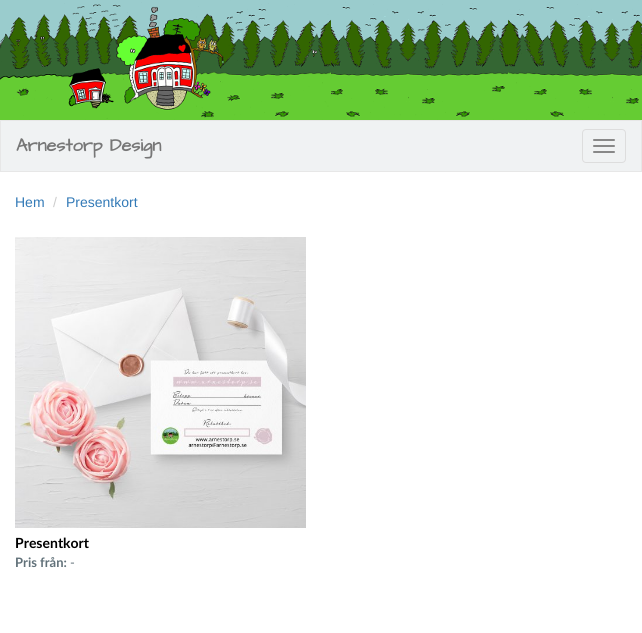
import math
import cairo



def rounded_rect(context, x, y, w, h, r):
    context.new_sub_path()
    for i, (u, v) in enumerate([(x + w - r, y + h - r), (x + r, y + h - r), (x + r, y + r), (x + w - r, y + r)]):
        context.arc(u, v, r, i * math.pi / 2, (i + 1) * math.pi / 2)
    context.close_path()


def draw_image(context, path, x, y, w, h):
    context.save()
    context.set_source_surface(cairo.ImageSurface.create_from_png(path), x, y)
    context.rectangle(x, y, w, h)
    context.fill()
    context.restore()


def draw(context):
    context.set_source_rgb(1, 1, 1)
    context.paint()
    draw_image(context, "images/1.png", 0, 0, 642, 120)
    draw_image(context, "images/2.png", 0, 4, 331, 115)
    context.set_source_rgb(240 / 255, 242 / 255, 243 / 255)
    context.rectangle(0.5, 120.5, 641, 51)
    context.fill_preserve()
    context.set_source_rgb(231 / 255, 231 / 255, 231 / 255)
    context.set_line_width(1)
    context.stroke()
    rounded_rect(context, 582.5, 129.5, 43, 33, 3.5)
    context.set_source_rgb(221 / 255, 221 / 255, 221 / 255)
    context.stroke()
    context.set_source_rgb(136 / 255, 136 / 255, 136 / 255)
    rounded_rect(context, 593, 139, 22, 2, 1)
    context.fill()
    rounded_rect(context, 593, 145, 22, 2, 1)
    context.fill()
    rounded_rect(context, 593, 151, 22, 2, 1)
    context.fill()
    draw_image(context, "images/3.png", 15, 237, 291, 291)
    context.select_font_face("Architects Daughter", cairo.FontSlant.NORMAL, cairo.FontWeight.BOLD)
    context.set_font_size(18)
    context.set_source_rgb(119 / 255, 119 / 255, 119 / 255)
    context.move_to(16, 151)
    context.show_text("Arnestorp Design")
    context.select_font_face("Liberation Sans")
    context.set_font_size(14)
    context.set_source_rgb(51 / 255, 122 / 255, 183 / 255)
    context.move_to(15, 207)
    context.show_text("Hem")
    context.set_source_rgb(204 / 255, 204 / 255, 204 / 255)
    context.move_to(53, 207)
    context.show_text("/")
    context.set_source_rgb(51 / 255, 122 / 255, 183 / 255)
    context.move_to(66, 207)
    context.show_text("Presentkort")
    context.select_font_face("Lato", cairo.FontSlant.NORMAL, cairo.FontWeight.BOLD)
    context.set_source_rgb(0, 0, 0)
    context.move_to(15, 548)
    context.show_text("Presentkort")
    context.set_font_size(13)
    context.set_source_rgb(97 / 255, 113 / 255, 121 / 255)
    context.move_to(15, 567)
    context.show_text("Pris från:")
    context.select_font_face("Lato")
    context.move_to(70, 567)
    context.show_text("-")


surface = cairo.ImageSurface(cairo.Format.RGB24, 642, 633)
context = cairo.Context(surface)
options = cairo.FontOptions()
options.set_hint_metrics(cairo.HintMetrics.OFF)
options.set_hint_style(cairo.HintStyle.NONE)
context.set_font_options(options)
context.set_miter_limit(4)
draw(context)
surface.write_to_png("out.png")
